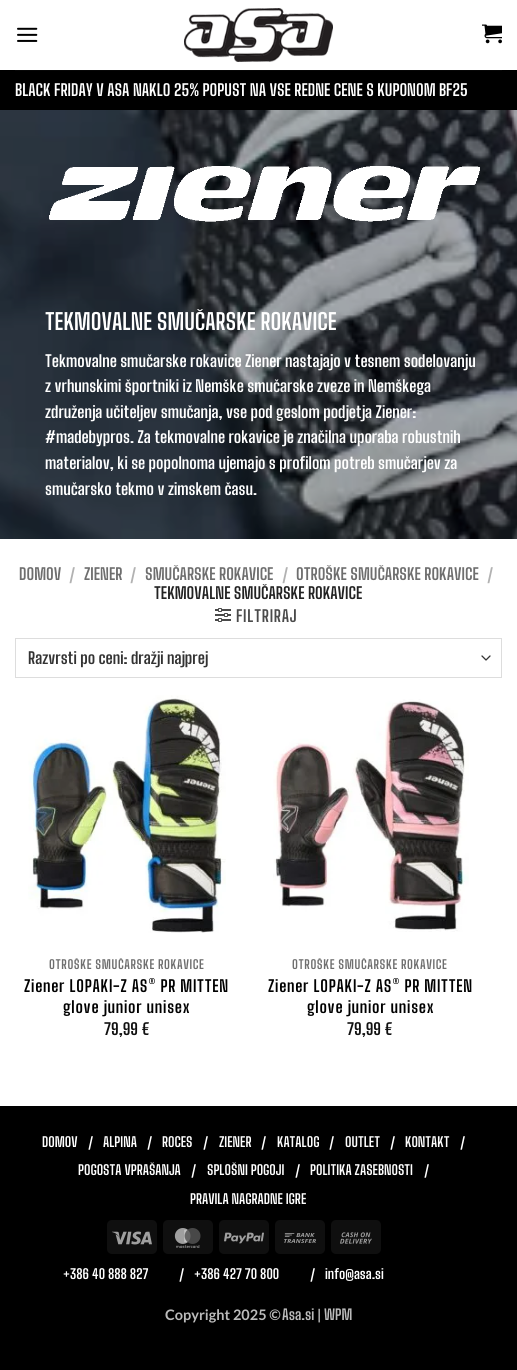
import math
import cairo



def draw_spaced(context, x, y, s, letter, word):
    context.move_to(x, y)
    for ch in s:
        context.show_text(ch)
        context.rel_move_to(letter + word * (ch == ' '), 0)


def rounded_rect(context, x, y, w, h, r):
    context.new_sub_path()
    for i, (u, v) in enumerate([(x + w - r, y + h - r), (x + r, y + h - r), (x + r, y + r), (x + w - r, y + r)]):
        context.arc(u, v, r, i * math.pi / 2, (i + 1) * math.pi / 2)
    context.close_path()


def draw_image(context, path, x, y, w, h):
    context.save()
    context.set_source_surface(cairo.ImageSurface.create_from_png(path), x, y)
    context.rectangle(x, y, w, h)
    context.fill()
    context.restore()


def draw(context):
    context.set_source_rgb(0, 0, 0)
    context.paint()
    context.set_source_rgb(1, 1, 1)
    context.rectangle(0, 0, 517, 1106)
    context.fill()
    draw_image(context, "images/1.png", 17, 27, 21, 15)
    draw_image(context, "images/2.png", 184, 8, 149, 54)
    draw_image(context, "images/3.png", 482, 24, 20, 20)
    context.set_source_rgb(0, 0, 0)
    context.rectangle(0, 70, 517, 40)
    context.fill()
    context.set_source_rgb(7 / 255, 7 / 255, 7 / 255)
    context.rectangle(15, 70, 487, 1)
    context.fill()
    draw_image(context, "images/4.png", 0, 110, 517, 429)
    draw_image(context, "images/5.png", 49, 166, 431, 56)
    draw_image(context, "images/6.png", 215, 608, 16, 14)
    context.new_path()
    context.move_to(482, 656)
    context.line_to(486, 660)
    context.line_to(490, 656)
    context.set_source_rgb(51 / 255, 51 / 255, 51 / 255)
    context.set_line_width(1.3)
    context.set_line_cap(cairo.LineCap.ROUND)
    context.set_line_join(cairo.LineJoin.ROUND)
    context.stroke()
    context.rectangle(15.5, 638.5, 486, 39)
    context.set_source_rgb(221 / 255, 221 / 255, 221 / 255)
    context.set_line_width(1)
    context.set_line_cap(cairo.LineCap.BUTT)
    context.set_line_join(cairo.LineJoin.MITER)
    context.stroke()
    draw_image(context, "images/7.png", 28, 695, 198, 238)
    draw_image(context, "images/8.png", 273, 699, 196, 233)
    context.set_source_rgb(15 / 255, 15 / 255, 15 / 255)
    rounded_rect(context, 107, 1220, 50, 34, 5)
    context.fill()
    draw_image(context, "images/9.png", 112, 1231, 40, 14)
    rounded_rect(context, 163, 1220, 50, 34, 5)
    context.fill()
    draw_image(context, "images/10.png", 174, 1228, 27, 20)
    rounded_rect(context, 219, 1220, 50, 34, 5)
    context.fill()
    draw_image(context, "images/11.png", 224, 1232, 40, 12)
    rounded_rect(context, 275, 1220, 50, 34, 5)
    context.fill()
    draw_image(context, "images/12.png", 284, 1233, 32, 10)
    rounded_rect(context, 331, 1220, 50, 34, 5)
    context.fill()
    draw_image(context, "images/13.png", 340, 1232, 32, 12)
    context.select_font_face("Big Shoulders Text", cairo.FontSlant.NORMAL, cairo.FontWeight.BOLD)
    context.set_font_size(16)
    context.set_source_rgb(1, 1, 1)
    context.move_to(15, 96)
    context.show_text("BLACK FRIDAY V ASA NAKLO 25% POPUST NA VSE REDNE CENE S KUPONOM BF25")
    context.set_font_size(22.4)
    context.move_to(45, 330)
    context.show_text("TEKMOVALNE SMUČARSKE ROKAVICE")
    context.set_font_size(16)
    context.move_to(45, 367)
    context.show_text("Tekmovalne smučarske rokavice Ziener nastajajo v tesnem sodelovanju")
    context.move_to(45, 392)
    context.show_text("z vrhunskimi športniki iz Nemške smučarske zveze in Nemškega")
    context.move_to(45, 418)
    context.show_text("združenja učiteljev smučanja, vse pod geslom podjetja Ziener:")
    context.move_to(45, 443)
    context.show_text("#madebypros. Za tekmovalne rokavice je značilna uporaba robustnih")
    context.move_to(45, 469)
    context.show_text("materialov, ki se popolnoma ujemajo s profilom potreb smučarjev za")
    context.move_to(45, 495)
    context.show_text("smučarsko tekmo v zimskem času.")
    context.set_source_rgb(110 / 255, 110 / 255, 110 / 255)
    context.move_to(19, 580)
    context.show_text("DOMOV")
    context.set_source_rgb(178 / 255, 178 / 255, 178 / 255)
    context.move_to(69, 580)
    context.show_text("/")
    context.set_source_rgb(110 / 255, 110 / 255, 110 / 255)
    context.move_to(84, 580)
    context.show_text("ZIENER")
    context.set_source_rgb(178 / 255, 178 / 255, 178 / 255)
    context.move_to(130, 580)
    context.show_text("/")
    context.set_source_rgb(110 / 255, 110 / 255, 110 / 255)
    context.move_to(145, 580)
    context.show_text("SMUČARSKE ROKAVICE")
    context.set_source_rgb(178 / 255, 178 / 255, 178 / 255)
    context.move_to(282, 580)
    context.show_text("/")
    context.set_source_rgb(110 / 255, 110 / 255, 110 / 255)
    context.move_to(296, 580)
    context.show_text("OTROŠKE SMUČARSKE ROKAVICE")
    context.set_source_rgb(178 / 255, 178 / 255, 178 / 255)
    context.move_to(487, 580)
    context.show_text("/")
    context.set_source_rgb(34 / 255, 34 / 255, 34 / 255)
    context.move_to(154, 599)
    context.show_text("TEKMOVALNE SMUČARSKE ROKAVICE")
    context.set_source_rgb(74 / 255, 74 / 255, 74 / 255)
    draw_spaced(context, 236, 622, "FILTRIRAJ", 0.75, 0)
    context.set_source_rgb(51 / 255, 51 / 255, 51 / 255)
    context.move_to(28, 664)
    context.show_text("Razvrsti po ceni: dražji najprej")
    context.save()
    context.rectangle(15, 958, 224, 15)
    context.clip()
    context.set_font_size(12.25)
    context.set_source_rgb(110 / 255, 110 / 255, 110 / 255)
    draw_spaced(context, 49, 969, "OTROŠKE SMUČARSKE ROKAVICE", 0.6, 0)
    context.restore()
    context.set_source_rgb(0, 0, 0)
    draw_spaced(context, 24, 992, "Ziener LOPAKI-Z AS® PR MITTEN", 0.75, 0)
    draw_spaced(context, 63, 1013, "glove junior unisex", 0.75, 0)
    context.set_source_rgb(17 / 255, 17 / 255, 17 / 255)
    context.move_to(104, 1035)
    context.show_text("79,99 €")
    context.save()
    context.rectangle(258, 958, 224, 15)
    context.clip()
    context.set_font_size(12.25)
    context.set_source_rgb(110 / 255, 110 / 255, 110 / 255)
    draw_spaced(context, 292, 969, "OTROŠKE SMUČARSKE ROKAVICE", 0.6, 0)
    context.restore()
    context.set_source_rgb(0, 0, 0)
    draw_spaced(context, 268, 992, "Ziener LOPAKI-Z AS® PR MITTEN", 0.75, 0)
    draw_spaced(context, 307, 1013, "glove junior unisex", 0.75, 0)
    context.set_source_rgb(17 / 255, 17 / 255, 17 / 255)
    context.move_to(347, 1035)
    context.show_text("79,99 €")
    context.set_font_size(13.5)
    context.set_source_rgb(1, 1, 1)
    context.move_to(42, 1147)
    context.show_text("DOMOV")
    context.move_to(88, 1147)
    context.show_text("/")
    context.move_to(103, 1147)
    context.show_text("ALPINA")
    context.move_to(147, 1147)
    context.show_text("/")
    context.move_to(162, 1147)
    context.show_text("ROCES")
    context.move_to(203, 1147)
    context.show_text("/")
    context.move_to(219, 1147)
    context.show_text("ZIENER")
    context.move_to(261, 1147)
    context.show_text("/")
    context.move_to(277, 1147)
    context.show_text("KATALOG")
    context.move_to(329, 1147)
    context.show_text("/")
    context.move_to(345, 1147)
    context.show_text("OUTLET")
    context.move_to(390, 1147)
    context.show_text("/")
    context.move_to(405, 1147)
    context.show_text("KONTAKT")
    context.move_to(460, 1147)
    context.show_text("/")
    context.move_to(78, 1175)
    context.show_text("POGOSTA VPRAŠANJA")
    context.move_to(191, 1175)
    context.show_text("/")
    context.move_to(207, 1175)
    context.show_text("SPLOŠNI POGOJI")
    context.move_to(295, 1175)
    context.show_text("/")
    context.move_to(310, 1175)
    context.show_text("POLITIKA ZASEBNOSTI")
    context.move_to(424, 1175)
    context.show_text("/")
    context.move_to(190, 1204)
    context.show_text("PRAVILA NAGRADNE IGRE")
    context.move_to(63, 1279)
    context.show_text("+386 40 888 827")
    context.move_to(179, 1279)
    context.show_text("/")
    context.move_to(194, 1279)
    context.show_text("+386 427 70 800")
    context.move_to(310, 1279)
    context.show_text("/")
    context.move_to(325, 1279)
    context.show_text("info@asa.si")
    context.select_font_face("Lato", cairo.FontSlant.NORMAL, cairo.FontWeight.BOLD)
    context.set_font_size(14.5)
    context.set_source_rgb(187 / 255, 187 / 255, 187 / 255)
    context.move_to(165, 1320)
    context.show_text("Copyright 2025 ©")
    context.select_font_face("Big Shoulders Text", cairo.FontSlant.NORMAL, cairo.FontWeight.BOLD)
    context.move_to(282, 1320)
    context.show_text("Asa.si")
    context.select_font_face("Lato", cairo.FontSlant.NORMAL, cairo.FontWeight.BOLD)
    context.move_to(317, 1320)
    context.show_text("|")
    context.select_font_face("Big Shoulders Text", cairo.FontSlant.NORMAL, cairo.FontWeight.BOLD)
    context.move_to(324, 1320)
    context.show_text("WPM")


surface = cairo.ImageSurface(cairo.Format.RGB24, 517, 1370)
context = cairo.Context(surface)
options = cairo.FontOptions()
options.set_hint_metrics(cairo.HintMetrics.OFF)
options.set_hint_style(cairo.HintStyle.NONE)
context.set_font_options(options)
context.set_miter_limit(4)
draw(context)
surface.write_to_png("out.png")
